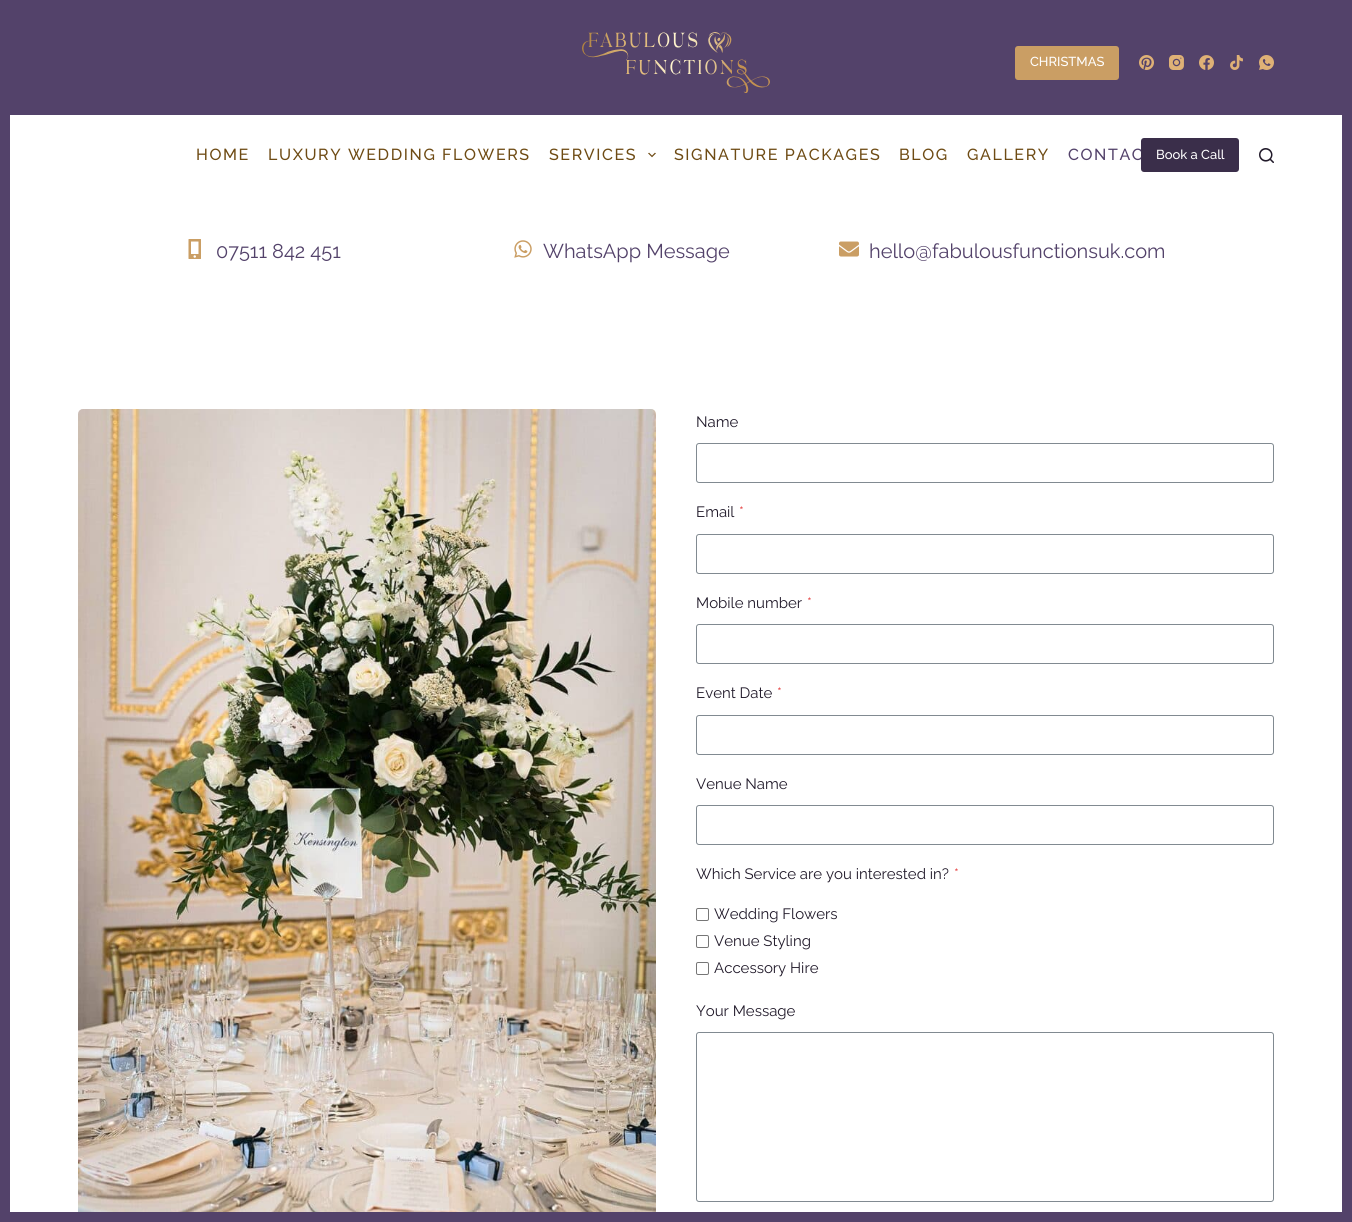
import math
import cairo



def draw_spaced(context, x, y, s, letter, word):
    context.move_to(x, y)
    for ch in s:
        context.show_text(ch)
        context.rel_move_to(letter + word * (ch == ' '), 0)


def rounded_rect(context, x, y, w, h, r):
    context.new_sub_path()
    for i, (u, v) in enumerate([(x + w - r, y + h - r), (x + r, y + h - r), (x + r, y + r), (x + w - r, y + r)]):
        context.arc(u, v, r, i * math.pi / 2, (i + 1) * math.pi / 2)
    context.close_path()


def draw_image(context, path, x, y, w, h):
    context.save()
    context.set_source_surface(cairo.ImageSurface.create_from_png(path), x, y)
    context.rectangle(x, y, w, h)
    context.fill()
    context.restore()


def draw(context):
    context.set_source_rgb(1, 1, 1)
    context.paint()
    context.rectangle(5, -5, 1342, 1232)
    context.set_source_rgb(83 / 255, 66 / 255, 106 / 255)
    context.set_line_width(10)
    context.stroke()
    context.rectangle(10, 0, 1332, 115)
    context.fill()
    draw_image(context, "images/1.png", 582, 32, 188, 61)
    context.set_source_rgb(202 / 255, 158 / 255, 100 / 255)
    rounded_rect(context, 1015, 46, 104, 34, 3)
    context.fill()
    draw_image(context, "images/2.png", 1139, 55, 15, 15)
    draw_image(context, "images/3.png", 1169, 55, 15, 15)
    draw_image(context, "images/4.png", 1199, 55, 15, 15)
    draw_image(context, "images/5.png", 1230, 55, 13, 15)
    draw_image(context, "images/6.png", 1259, 55, 15, 15)
    draw_image(context, "images/7.png", 648, 152, 8, 6)
    draw_image(context, "images/8.png", 1259, 148, 15, 15)
    draw_image(context, "images/9.png", 188, 239, 13, 20)
    draw_image(context, "images/10.png", 514, 240, 18, 18)
    draw_image(context, "images/11.png", 839, 241, 20, 16)
    draw_image(context, "images/12.png", 78, 409, 578, 803)
    rounded_rect(context, 696.5, 443.5, 577, 39, 2.5)
    context.set_source_rgb(129 / 255, 138 / 255, 145 / 255)
    context.set_line_width(1)
    context.stroke()
    rounded_rect(context, 696.5, 534.5, 577, 39, 2.5)
    context.stroke()
    rounded_rect(context, 696.5, 624.5, 577, 39, 2.5)
    context.stroke()
    rounded_rect(context, 696.5, 715.5, 577, 39, 2.5)
    context.stroke()
    rounded_rect(context, 696.5, 805.5, 577, 39, 2.5)
    context.stroke()
    rounded_rect(context, 696.5, 908.5, 12, 12, 1.5)
    context.set_source_rgb(118 / 255, 118 / 255, 118 / 255)
    context.stroke()
    rounded_rect(context, 696.5, 935.5, 12, 12, 1.5)
    context.stroke()
    rounded_rect(context, 696.5, 962.5, 12, 12, 1.5)
    context.stroke()
    rounded_rect(context, 696.5, 1032.5, 577, 169, 2.5)
    context.set_source_rgb(129 / 255, 138 / 255, 145 / 255)
    context.stroke()
    context.set_source_rgb(83 / 255, 66 / 255, 106 / 255)
    context.rectangle(10, 1212, 1332, 10)
    context.fill()
    context.select_font_face("Raleway Medium", cairo.FontSlant.ITALIC)
    context.set_font_size(13)
    context.set_source_rgb(1, 1, 1)
    context.move_to(1030, 66)
    context.show_text("CHRISTMAS")
    context.set_font_size(16)
    context.set_source_rgb(110 / 255, 75 / 255, 20 / 255)
    draw_spaced(context, 196, 160, "HOME", 1.6, 0)
    draw_spaced(context, 268, 160, "LUXURY WEDDING FLOWERS", 1.6, 0)
    draw_spaced(context, 549, 160, "SERVICES", 1.6, 0)
    draw_spaced(context, 674, 160, "SIGNATURE PACKAGES", 1.6, 0)
    draw_spaced(context, 899, 160, "BLOG", 1.6, 0)
    draw_spaced(context, 967, 160, "GALLERY", 1.6, 0)
    context.set_source_rgb(83 / 255, 66 / 255, 106 / 255)
    draw_spaced(context, 1068, 160, "CONTAC", 1.6, 0)
    context.set_source_rgb(58 / 255, 46 / 255, 74 / 255)
    rounded_rect(context, 1141, 138, 98, 34, 3)
    context.fill()
    context.set_font_size(13)
    context.set_source_rgb(1, 1, 1)
    context.move_to(1156, 159)
    context.show_text("Book a Call")
    context.select_font_face("Raleway", cairo.FontSlant.ITALIC)
    context.set_font_size(20)
    context.set_source_rgb(83 / 255, 66 / 255, 106 / 255)
    context.move_to(216, 258)
    context.show_text("07511 842 451")
    context.move_to(543, 258)
    context.show_text("WhatsApp Message")
    context.move_to(869, 258)
    context.show_text("hello@fabulousfunctionsuk.com")
    context.set_font_size(15)
    context.set_source_rgb(33 / 255, 26 / 255, 42 / 255)
    context.move_to(696, 427)
    context.show_text("Name")
    context.move_to(696, 517)
    context.show_text("Email")
    context.set_source_rgb(229 / 255, 62 / 255, 62 / 255)
    context.move_to(739, 517)
    context.show_text("*")
    context.set_source_rgb(33 / 255, 26 / 255, 42 / 255)
    context.move_to(696, 608)
    context.show_text("Mobile number")
    context.set_source_rgb(229 / 255, 62 / 255, 62 / 255)
    context.move_to(807, 608)
    context.show_text("*")
    context.set_source_rgb(33 / 255, 26 / 255, 42 / 255)
    context.move_to(696, 698)
    context.show_text("Event Date")
    context.set_source_rgb(229 / 255, 62 / 255, 62 / 255)
    context.move_to(777, 698)
    context.show_text("*")
    context.set_source_rgb(33 / 255, 26 / 255, 42 / 255)
    context.move_to(696, 789)
    context.show_text("Venue Name")
    context.move_to(696, 879)
    context.show_text("Which Service are you interested in?")
    context.set_source_rgb(229 / 255, 62 / 255, 62 / 255)
    context.move_to(954, 879)
    context.show_text("*")
    context.set_source_rgb(33 / 255, 26 / 255, 42 / 255)
    context.move_to(714, 919)
    context.show_text("Wedding Flowers")
    context.move_to(714, 946)
    context.show_text("Venue Styling")
    context.move_to(714, 973)
    context.show_text("Accessory Hire")
    context.move_to(696, 1016)
    context.show_text("Your Message")


surface = cairo.ImageSurface(cairo.Format.RGB24, 1352, 1222)
context = cairo.Context(surface)
options = cairo.FontOptions()
options.set_hint_metrics(cairo.HintMetrics.OFF)
options.set_hint_style(cairo.HintStyle.NONE)
context.set_font_options(options)
context.set_miter_limit(4)
draw(context)
surface.write_to_png("out.png")
